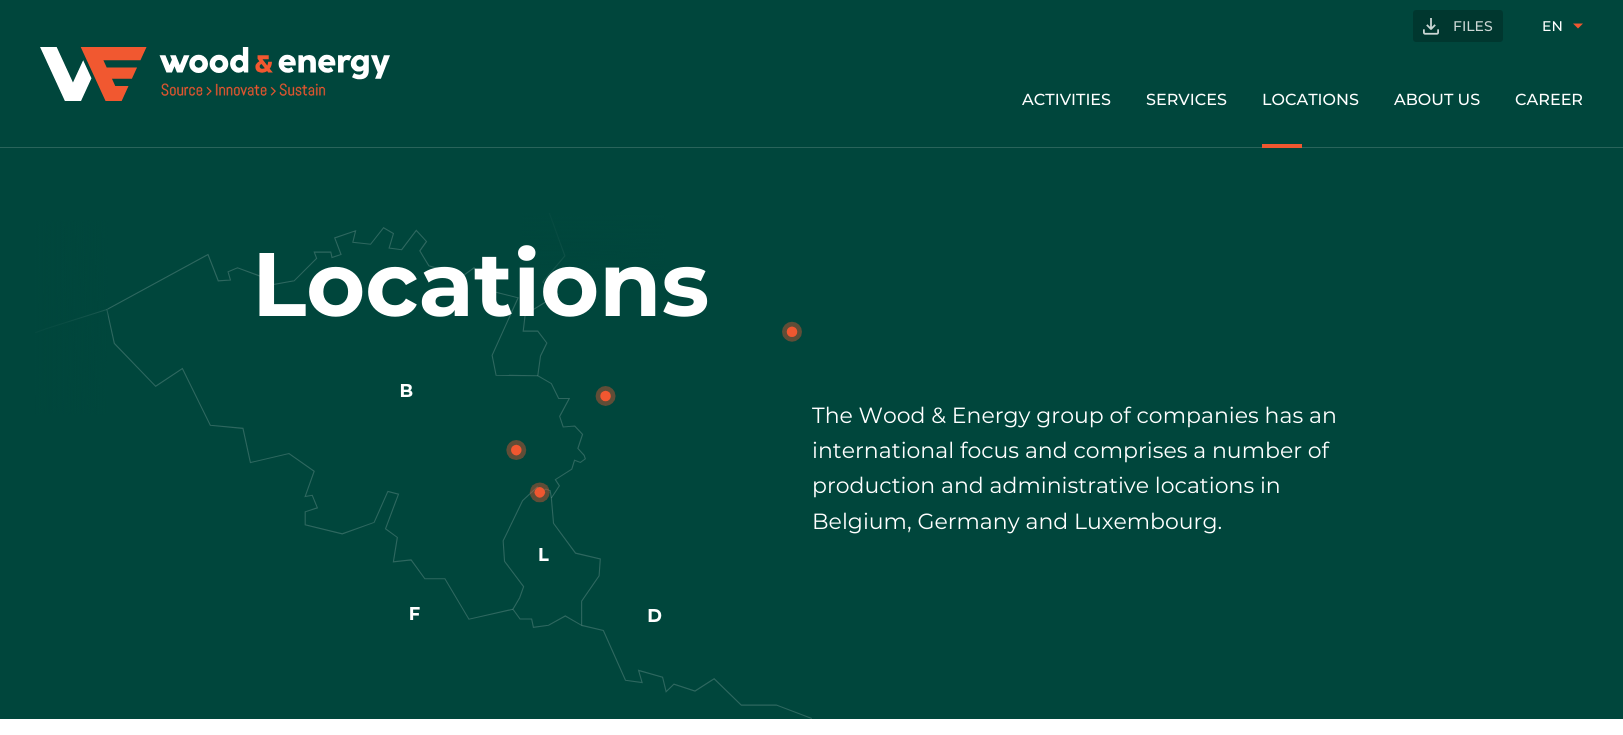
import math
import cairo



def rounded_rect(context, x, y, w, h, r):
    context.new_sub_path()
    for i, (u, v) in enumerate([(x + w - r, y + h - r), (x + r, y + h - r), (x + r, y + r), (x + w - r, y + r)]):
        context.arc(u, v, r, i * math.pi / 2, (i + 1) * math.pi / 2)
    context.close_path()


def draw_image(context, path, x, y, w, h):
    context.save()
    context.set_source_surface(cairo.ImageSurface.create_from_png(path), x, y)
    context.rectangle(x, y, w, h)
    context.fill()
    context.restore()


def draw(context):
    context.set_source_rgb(1, 1, 1)
    context.paint()
    context.set_source_rgb(0, 70 / 255, 60 / 255)
    context.rectangle(0, 0, 1623, 719)
    context.fill()
    draw_image(context, "images/1.png", 40, 47, 350, 54)
    context.set_source_rgb(0, 55 / 255, 47 / 255)
    rounded_rect(context, 1413, 10, 90, 32, 3)
    context.fill()
    draw_image(context, "images/2.png", 1423, 18, 16, 17)
    context.set_source_rgb(240 / 255, 87 / 255, 48 / 255)
    context.new_path()
    context.move_to(1573, 23.5)
    context.line_to(1583, 23.5)
    context.line_to(1578, 28.5)
    context.close_path()
    context.fill()
    context.set_source_rgb(41 / 255, 100 / 255, 91 / 255)
    context.rectangle(0, 147, 1623, 1)
    context.fill()
    context.set_source_rgb(240 / 255, 87 / 255, 48 / 255)
    context.rectangle(1262, 144, 40, 4)
    context.fill()
    draw_image(context, "images/3.png", 35, 213, 777, 506)
    context.select_font_face("Montserrat Medium")
    context.set_font_size(14)
    context.set_source_rgb(204 / 255, 215 / 255, 213 / 255)
    context.move_to(1453, 31)
    context.show_text("FILES")
    context.set_source_rgb(1, 1, 1)
    context.move_to(1542, 31)
    context.show_text("EN")
    context.set_font_size(16)
    context.move_to(1022, 105)
    context.show_text("ACTIVITIES")
    context.move_to(1146, 105)
    context.show_text("SERVICES")
    context.move_to(1262, 105)
    context.show_text("LOCATIONS")
    context.move_to(1394, 105)
    context.show_text("ABOUT US")
    context.move_to(1515, 105)
    context.show_text("CAREER")
    context.select_font_face("Montserrat", cairo.FontSlant.NORMAL, cairo.FontWeight.BOLD)
    context.set_font_size(90)
    context.move_to(252, 316)
    context.show_text("Locations")
    context.select_font_face("Montserrat")
    context.set_font_size(22)
    context.move_to(812, 423)
    context.show_text("The Wood & Energy group of companies has an")
    context.move_to(812, 458)
    context.show_text("international focus and comprises a number of")
    context.move_to(812, 493)
    context.show_text("production and administrative locations in")
    context.move_to(812, 529)
    context.show_text("Belgium, Germany and Luxembourg.")


surface = cairo.ImageSurface(cairo.Format.RGB24, 1623, 735)
context = cairo.Context(surface)
options = cairo.FontOptions()
options.set_hint_metrics(cairo.HintMetrics.OFF)
options.set_hint_style(cairo.HintStyle.NONE)
context.set_font_options(options)
context.set_miter_limit(4)
draw(context)
surface.write_to_png("out.png")
